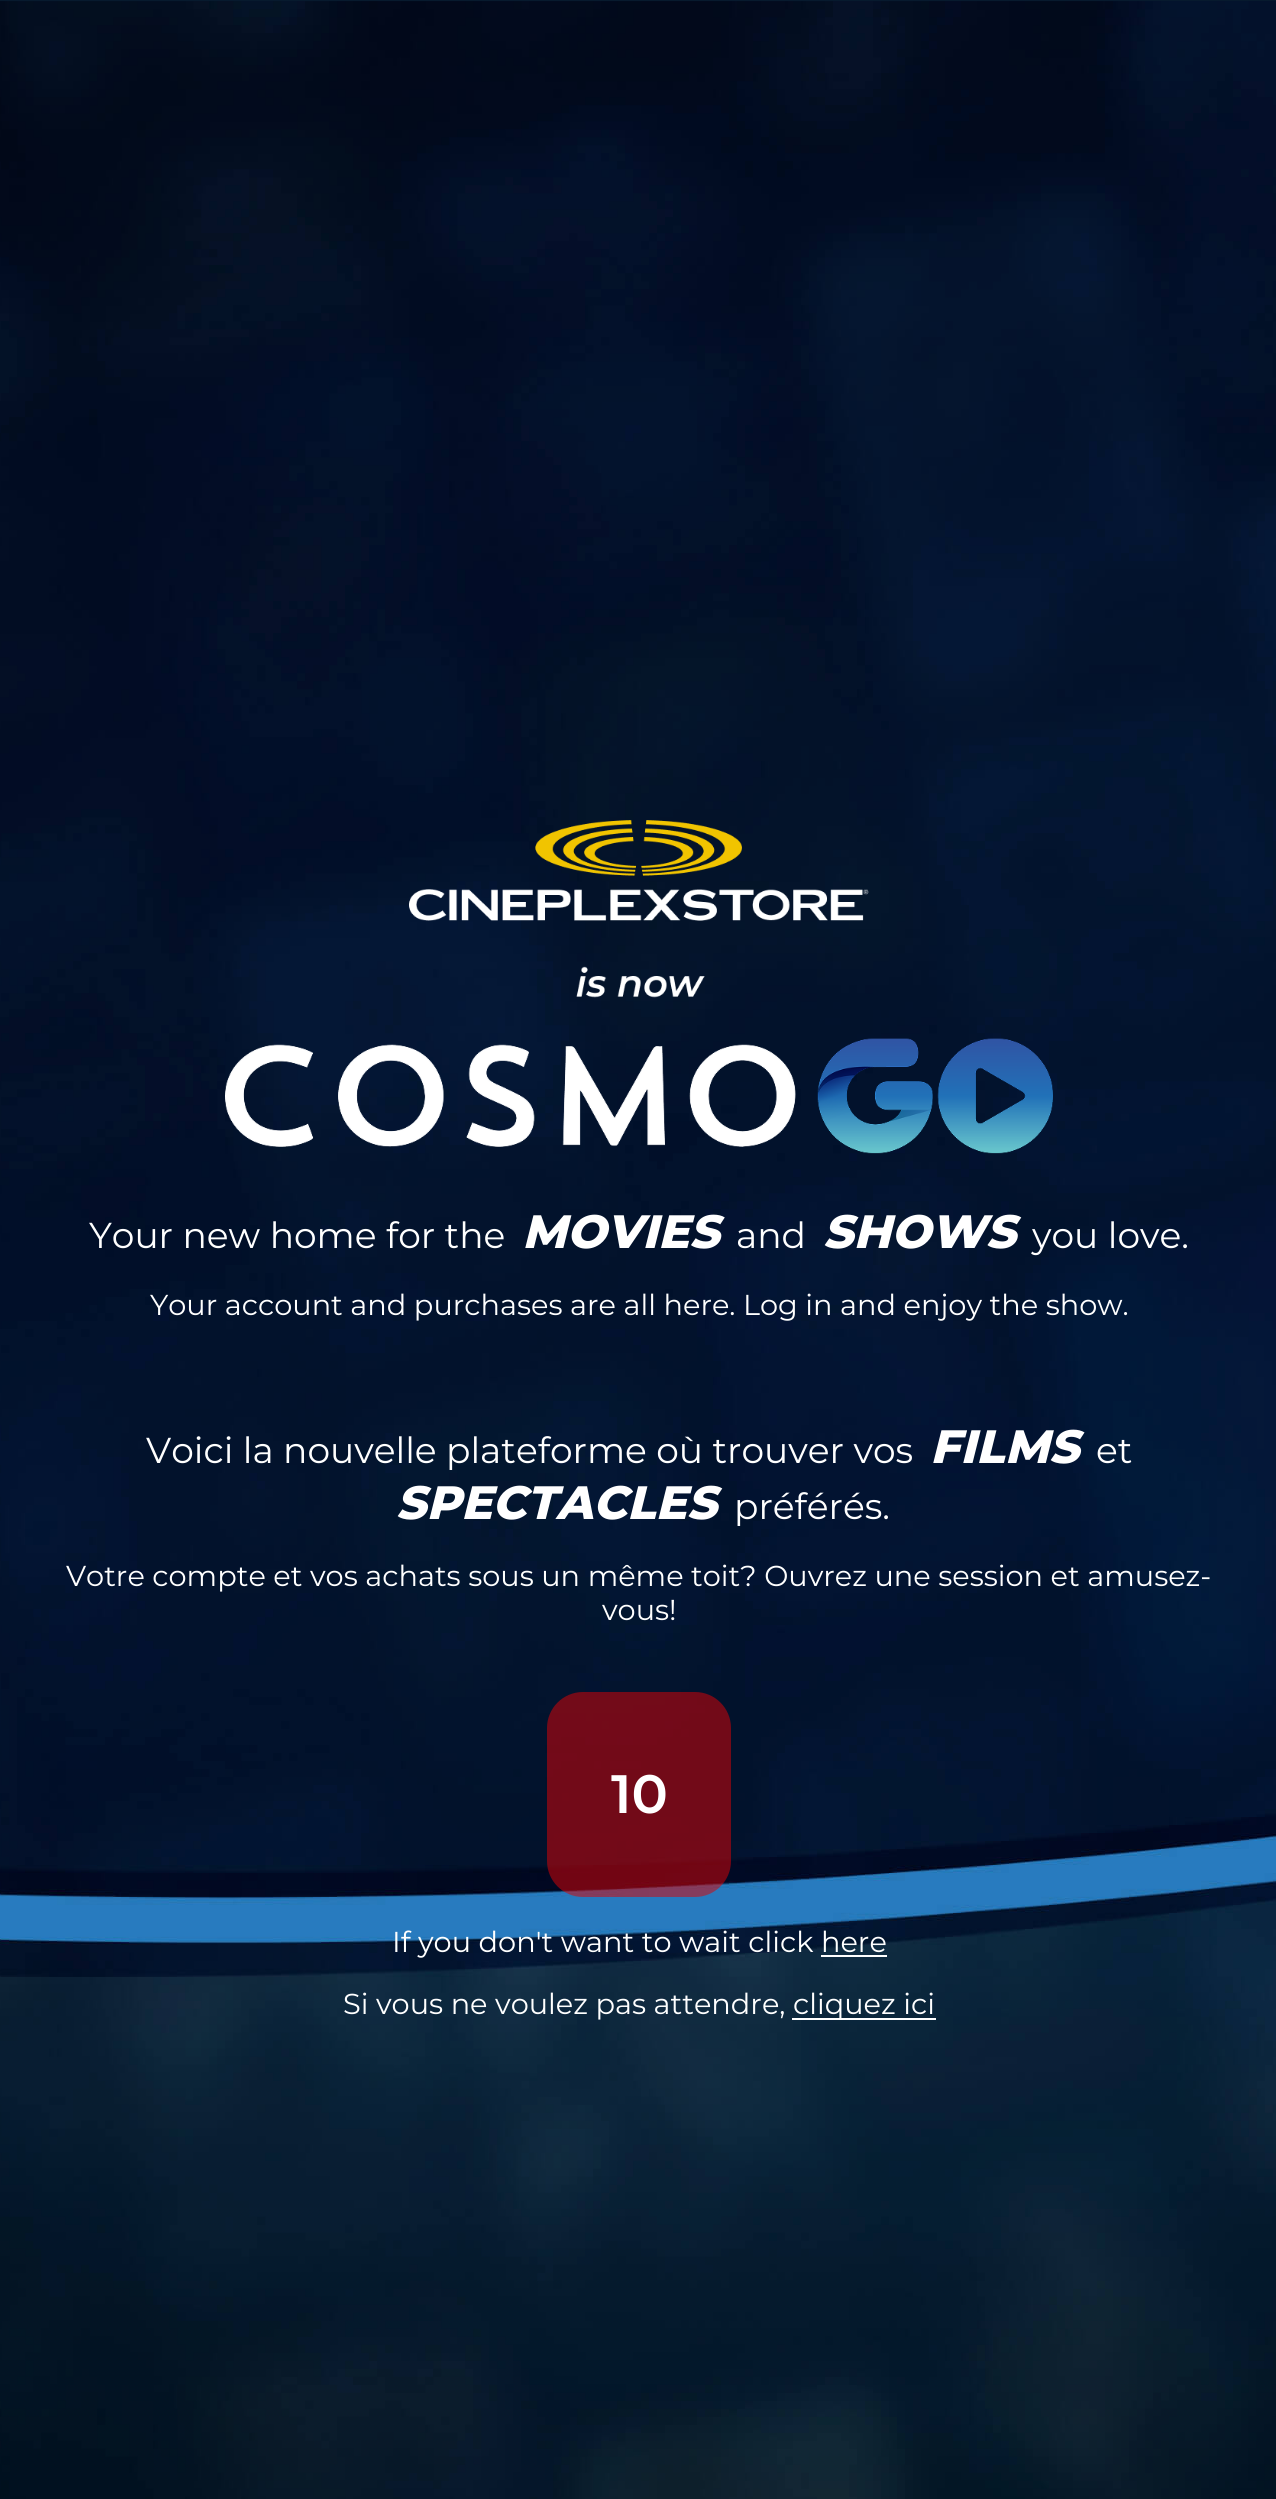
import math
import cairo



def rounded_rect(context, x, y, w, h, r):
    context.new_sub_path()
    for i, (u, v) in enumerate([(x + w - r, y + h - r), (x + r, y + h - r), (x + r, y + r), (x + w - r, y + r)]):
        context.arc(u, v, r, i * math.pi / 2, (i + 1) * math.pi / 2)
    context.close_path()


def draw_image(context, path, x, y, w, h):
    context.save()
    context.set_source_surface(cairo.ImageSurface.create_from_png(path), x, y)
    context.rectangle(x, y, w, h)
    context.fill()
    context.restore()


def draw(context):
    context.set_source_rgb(7 / 255, 26 / 255, 46 / 255)
    context.paint()
    draw_image(context, "images/1.png", 0, 1, 1276, 2498)
    draw_image(context, "images/2.png", 225, 820, 828, 334)
    context.set_source_rgba(219 / 255, 3 / 255, 6 / 255, 0.52)
    rounded_rect(context, 547, 1692, 184, 205, 36)
    context.fill()
    context.set_source_rgb(1, 1, 1)
    context.rectangle(821, 1955, 66, 2)
    context.fill()
    context.rectangle(792, 2018, 144, 2)
    context.fill()
    context.select_font_face("Montserrat")
    context.set_font_size(36)
    context.move_to(89, 1248)
    context.show_text("Your new home for the")
    context.select_font_face("Montserrat ExtraBold", cairo.FontSlant.ITALIC)
    context.set_font_size(46.75)
    context.move_to(522, 1248)
    context.show_text("MOVIES")
    context.select_font_face("Montserrat")
    context.set_font_size(36)
    context.move_to(736, 1248)
    context.show_text("and")
    context.select_font_face("Montserrat ExtraBold", cairo.FontSlant.ITALIC)
    context.set_font_size(46.75)
    context.move_to(823, 1248)
    context.show_text("SHOWS")
    context.select_font_face("Montserrat")
    context.set_font_size(36)
    context.move_to(1032, 1248)
    context.show_text("you love.")
    context.set_font_size(28.8)
    context.move_to(150, 1315)
    context.show_text("Your account and purchases are all here. Log in and enjoy the show.")
    context.set_font_size(36)
    context.move_to(146, 1463)
    context.show_text("Voici la nouvelle plateforme où trouver vos")
    context.select_font_face("Montserrat ExtraBold", cairo.FontSlant.ITALIC)
    context.set_font_size(46.75)
    context.move_to(930, 1463)
    context.show_text("FILMS")
    context.select_font_face("Montserrat")
    context.set_font_size(36)
    context.move_to(1096, 1463)
    context.show_text("et")
    context.select_font_face("Montserrat ExtraBold", cairo.FontSlant.ITALIC)
    context.set_font_size(46.75)
    context.move_to(396, 1519)
    context.show_text("SPECTACLES")
    context.select_font_face("Montserrat")
    context.set_font_size(36)
    context.move_to(734, 1519)
    context.show_text("préférés.")
    context.set_font_size(28.8)
    context.move_to(66, 1586)
    context.show_text("Votre compte et vos achats sous un même toit? Ouvrez une session et amusez-")
    context.move_to(602, 1620)
    context.show_text("vous!")
    context.select_font_face("Montserrat SemiBold")
    context.set_font_size(54)
    context.move_to(611, 1813)
    context.show_text("10")
    context.select_font_face("Montserrat")
    context.set_font_size(28.8)
    context.move_to(392, 1952)
    context.show_text("If you don't want to wait click here")
    context.move_to(343, 2014)
    context.show_text("Si vous ne voulez pas attendre,")
    context.move_to(793, 2014)
    context.show_text("cliquez ici")


surface = cairo.ImageSurface(cairo.Format.RGB24, 1276, 2499)
context = cairo.Context(surface)
options = cairo.FontOptions()
options.set_hint_metrics(cairo.HintMetrics.OFF)
options.set_hint_style(cairo.HintStyle.NONE)
context.set_font_options(options)
context.set_miter_limit(4)
draw(context)
surface.write_to_png("out.png")
